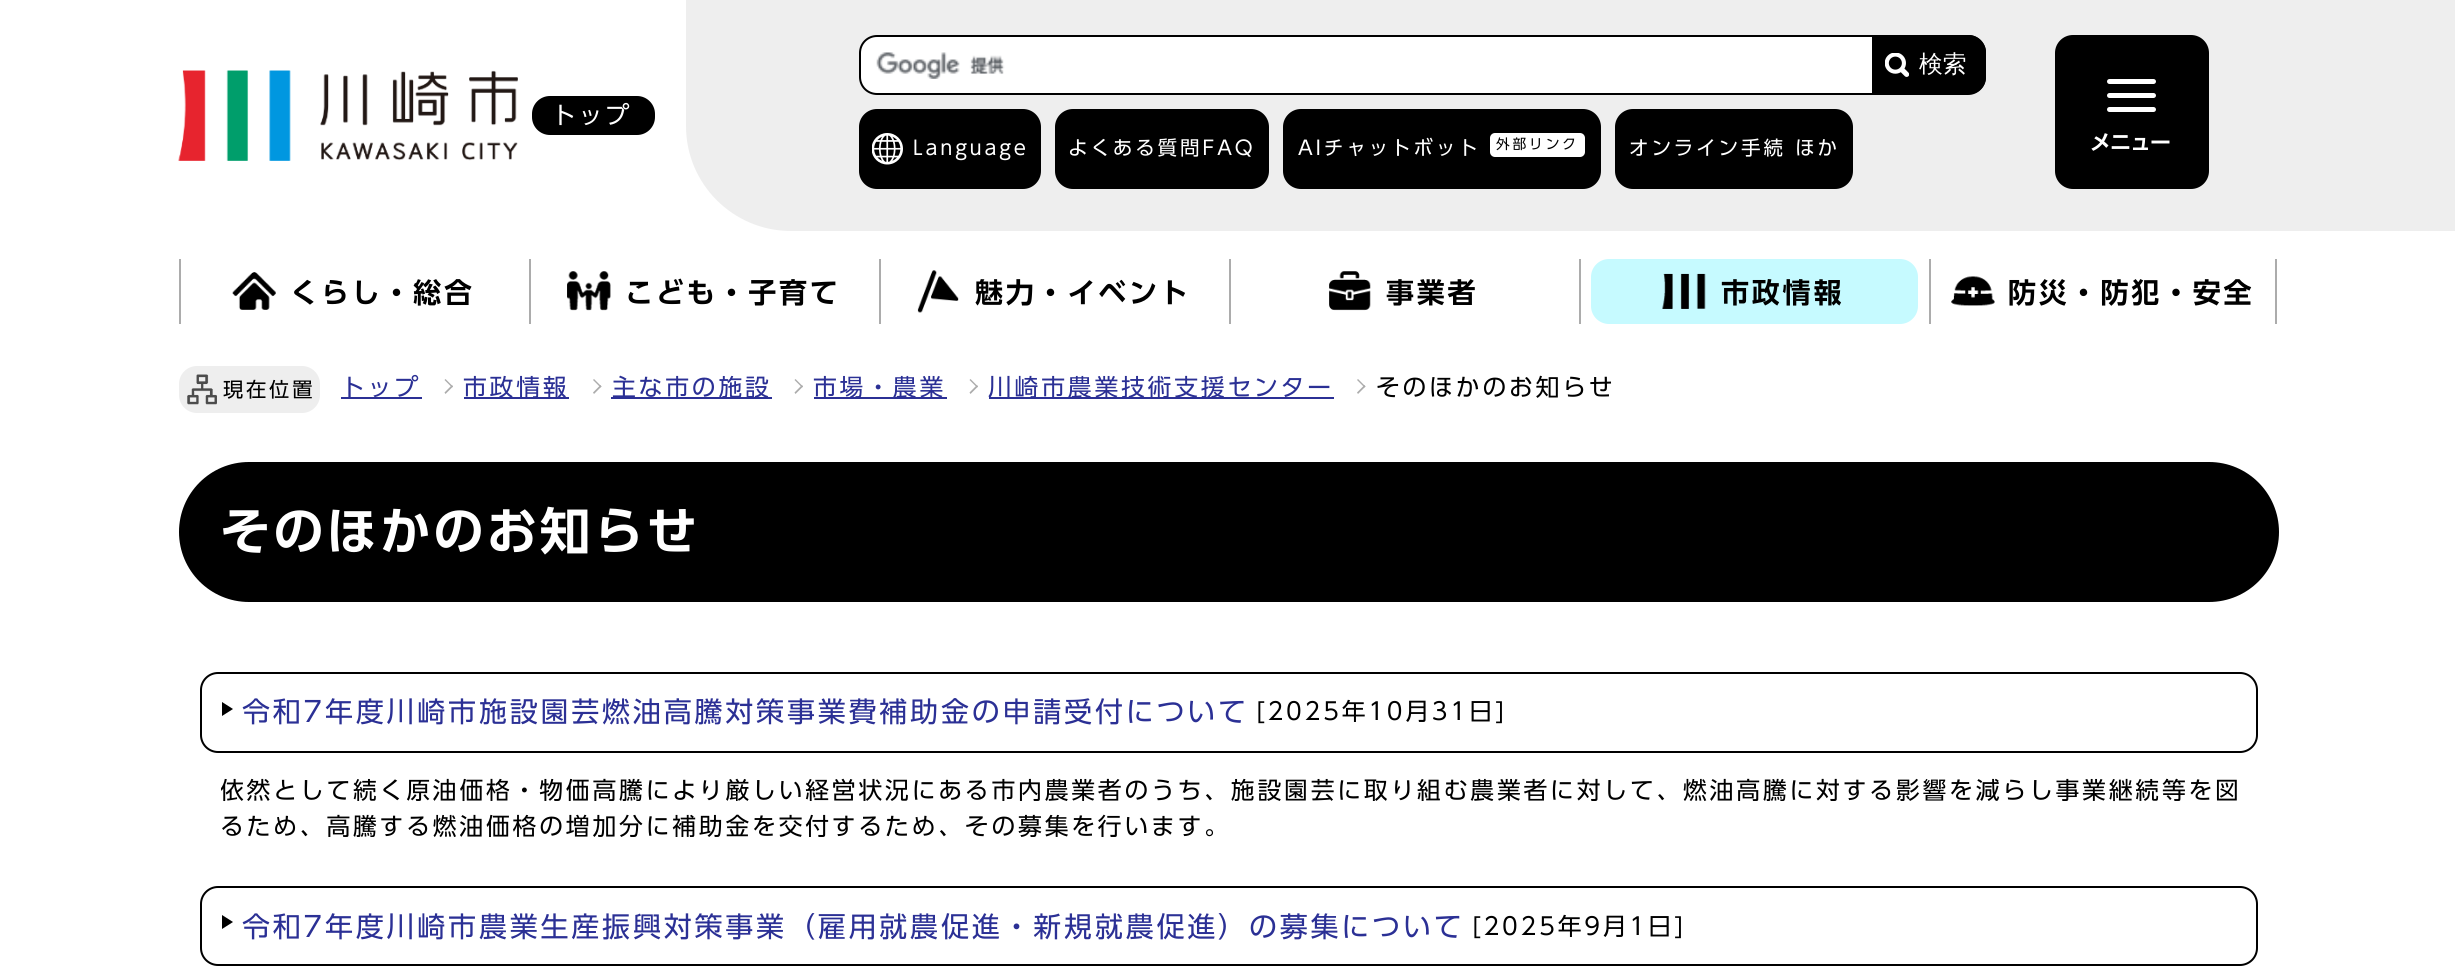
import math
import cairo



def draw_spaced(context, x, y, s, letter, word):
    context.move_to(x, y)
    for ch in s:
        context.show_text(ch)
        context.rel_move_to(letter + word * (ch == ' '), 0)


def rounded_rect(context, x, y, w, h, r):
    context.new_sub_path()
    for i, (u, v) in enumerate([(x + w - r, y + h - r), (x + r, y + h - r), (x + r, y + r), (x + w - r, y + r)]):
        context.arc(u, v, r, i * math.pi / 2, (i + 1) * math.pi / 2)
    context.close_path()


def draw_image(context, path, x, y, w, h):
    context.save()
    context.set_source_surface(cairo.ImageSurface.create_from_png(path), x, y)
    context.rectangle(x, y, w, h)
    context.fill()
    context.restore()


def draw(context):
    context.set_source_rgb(1, 1, 1)
    context.paint()
    draw_image(context, "images/1.png", 178, 70, 340, 91)
    context.set_source_rgb(0, 0, 0)
    rounded_rect(context, 533, 97, 121, 37, 17)
    context.fill_preserve()
    context.stroke()
    context.set_source_rgb(238 / 255, 238 / 255, 238 / 255)
    context.new_path()
    context.move_to(686, 0)
    context.line_to(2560, 0)
    context.line_to(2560, 231)
    context.line_to(791, 231)
    context.curve_to(733, 231, 686, 184, 686, 126)
    context.close_path()
    context.fill()
    context.set_source_rgb(1, 1, 1)
    context.new_path()
    context.move_to(877, 35)
    context.line_to(1874, 35)
    context.line_to(1874, 95)
    context.line_to(877, 95)
    context.curve_to(867, 95, 859, 87, 859, 77)
    context.line_to(859, 53)
    context.curve_to(859, 43, 867, 35, 877, 35)
    context.close_path()
    context.fill()
    draw_image(context, "images/2.png", 876, 52, 129, 27)
    context.new_path()
    context.move_to(877, 36)
    context.line_to(1873, 36)
    context.line_to(1873, 94)
    context.line_to(877, 94)
    context.curve_to(867.5, 94, 860, 86.5, 860, 77)
    context.line_to(860, 53)
    context.curve_to(860, 43.5, 867.5, 36, 877, 36)
    context.close_path()
    context.set_source_rgb(0, 0, 0)
    context.stroke()
    context.new_path()
    context.move_to(1874, 35)
    context.line_to(1968, 35)
    context.curve_to(1978, 35, 1986, 43, 1986, 53)
    context.line_to(1986, 77)
    context.curve_to(1986, 87, 1978, 95, 1968, 95)
    context.line_to(1874, 95)
    context.close_path()
    context.fill()
    draw_image(context, "images/3.png", 1885, 53, 24, 24)
    context.set_fill_rule(cairo.FillRule.EVEN_ODD)
    context.new_path()
    context.move_to(1874, 35)
    context.line_to(1969, 35)
    context.curve_to(1978, 35, 1986, 43, 1986, 52)
    context.line_to(1986, 77)
    context.curve_to(1986, 87, 1978, 94, 1969, 94)
    context.line_to(1874, 94)
    context.close_path()
    context.move_to(1874, 37)
    context.line_to(1969, 37)
    context.curve_to(1977, 37, 1984, 44, 1984, 52)
    context.line_to(1984, 77)
    context.curve_to(1984, 86, 1977, 93, 1969, 93)
    context.line_to(1874, 93)
    context.close_path()
    context.fill()
    rounded_rect(context, 860, 110, 180, 78, 17)
    context.fill_preserve()
    context.stroke()
    draw_image(context, "images/4.png", 872, 133, 31, 32)
    rounded_rect(context, 1056, 110, 212, 78, 17)
    context.fill_preserve()
    context.stroke()
    rounded_rect(context, 1284, 110, 316, 78, 17)
    context.fill_preserve()
    context.stroke()
    context.set_source_rgb(1, 1, 1)
    rounded_rect(context, 1489, 132, 97, 26, 6)
    context.fill_preserve()
    context.set_source_rgb(0, 0, 0)
    context.stroke()
    rounded_rect(context, 1616, 110, 236, 78, 17)
    context.fill_preserve()
    context.stroke()
    rounded_rect(context, 2056, 36, 152, 152, 17)
    context.fill_preserve()
    context.stroke()
    context.set_source_rgb(1, 1, 1)
    rounded_rect(context, 2107, 79, 49, 5, 2.5)
    context.fill()
    rounded_rect(context, 2107, 93, 49, 5, 2.5)
    context.fill()
    rounded_rect(context, 2107, 107, 49, 5, 2.5)
    context.fill()
    context.set_source_rgb(172 / 255, 172 / 255, 172 / 255)
    context.rectangle(179, 259, 2, 65)
    context.fill()
    draw_image(context, "images/5.png", 232, 272, 44, 38)
    context.rectangle(529, 259, 2, 65)
    context.fill()
    draw_image(context, "images/6.png", 567, 271, 44, 40)
    context.rectangle(879, 259, 2, 65)
    context.fill()
    draw_image(context, "images/7.png", 917, 270, 42, 43)
    context.rectangle(1229, 259, 2, 65)
    context.fill()
    draw_image(context, "images/8.png", 1329, 271, 42, 40)
    context.rectangle(1579, 259, 2, 65)
    context.fill()
    context.set_source_rgb(198 / 255, 250 / 255, 1)
    rounded_rect(context, 1591, 259, 327, 65, 18)
    context.fill()
    draw_image(context, "images/9.png", 1662, 273, 44, 36)
    context.set_source_rgb(172 / 255, 172 / 255, 172 / 255)
    context.rectangle(2275, 259, 2, 65)
    context.fill()
    context.rectangle(1929, 259, 2, 65)
    context.fill()
    draw_image(context, "images/10.png", 1951, 276, 44, 30)
    context.set_source_rgb(238 / 255, 238 / 255, 238 / 255)
    rounded_rect(context, 179, 366, 141, 47, 18)
    context.fill()
    draw_image(context, "images/11.png", 187, 374, 30, 31)
    context.set_source_rgb(43 / 255, 48 / 255, 149 / 255)
    context.rectangle(341, 397, 81, 2)
    context.fill()
    context.set_source_rgb(172 / 255, 172 / 255, 172 / 255)
    context.set_fill_rule(cairo.FillRule.WINDING)
    context.new_path()
    context.move_to(444.5, 380)
    context.line_to(445.5, 379)
    context.line_to(453, 386.5)
    context.line_to(452, 387.5)
    context.close_path()
    context.fill()
    context.new_path()
    context.move_to(444.5, 392.5)
    context.line_to(452, 385)
    context.line_to(453, 386.5)
    context.line_to(445.5, 394)
    context.close_path()
    context.fill()
    context.set_source_rgb(43 / 255, 48 / 255, 149 / 255)
    context.rectangle(464, 397, 105, 2)
    context.fill()
    context.set_source_rgb(172 / 255, 172 / 255, 172 / 255)
    context.new_path()
    context.move_to(593, 380)
    context.line_to(594, 379)
    context.line_to(601.5, 386.5)
    context.line_to(600.5, 387.5)
    context.close_path()
    context.fill()
    context.new_path()
    context.move_to(593, 392.5)
    context.line_to(600.5, 385)
    context.line_to(601.5, 386.5)
    context.line_to(594, 394)
    context.close_path()
    context.fill()
    context.set_source_rgb(43 / 255, 48 / 255, 149 / 255)
    context.rectangle(611, 397, 161, 2)
    context.fill()
    context.set_source_rgb(172 / 255, 172 / 255, 172 / 255)
    context.new_path()
    context.move_to(794.5, 380)
    context.line_to(795.5, 379)
    context.line_to(803, 386.5)
    context.line_to(802, 387.5)
    context.close_path()
    context.fill()
    context.new_path()
    context.move_to(794.5, 392.5)
    context.line_to(802, 385)
    context.line_to(803, 386.5)
    context.line_to(795.5, 394)
    context.close_path()
    context.fill()
    context.set_source_rgb(43 / 255, 48 / 255, 149 / 255)
    context.rectangle(814, 397, 133, 2)
    context.fill()
    context.set_source_rgb(172 / 255, 172 / 255, 172 / 255)
    context.new_path()
    context.move_to(969.5, 380)
    context.line_to(970.5, 379)
    context.line_to(978, 386.5)
    context.line_to(977, 387.5)
    context.close_path()
    context.fill()
    context.new_path()
    context.move_to(969.5, 392.5)
    context.line_to(977, 385)
    context.line_to(978, 386.5)
    context.line_to(970.5, 394)
    context.close_path()
    context.fill()
    context.set_source_rgb(43 / 255, 48 / 255, 149 / 255)
    context.rectangle(989, 397, 345, 2)
    context.fill()
    context.set_source_rgb(172 / 255, 172 / 255, 172 / 255)
    context.new_path()
    context.move_to(1357, 380)
    context.line_to(1358, 379)
    context.line_to(1365.5, 386.5)
    context.line_to(1364.5, 387.5)
    context.close_path()
    context.fill()
    context.new_path()
    context.move_to(1357, 392.5)
    context.line_to(1364.5, 385)
    context.line_to(1365.5, 386.5)
    context.line_to(1358, 394)
    context.close_path()
    context.fill()
    context.set_source_rgb(0, 0, 0)
    rounded_rect(context, 179, 462, 2100, 140, 70)
    context.fill()
    rounded_rect(context, 201, 673, 2056, 79, 17)
    context.stroke()
    context.new_path()
    context.move_to(222, 716)
    context.line_to(222, 702)
    context.line_to(233, 709)
    context.close_path()
    context.fill()
    rounded_rect(context, 201, 887, 2056, 78, 17)
    context.stroke()
    context.new_path()
    context.move_to(222, 929)
    context.line_to(222, 915)
    context.line_to(233, 922)
    context.close_path()
    context.fill()
    context.select_font_face("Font")
    context.set_font_size(23.8)
    context.set_source_rgb(1, 1, 1)
    draw_spaced(context, 552, 124, "トップ", 2.8, 0)
    context.select_font_face("WenQuanYi Zen Hei Medium")
    context.move_to(1919, 72)
    context.show_text("検索")
    context.select_font_face("Font")
    context.set_font_size(19.6)
    draw_spaced(context, 913, 155, "Language", 2.8, 0)
    draw_spaced(context, 1068, 155, "よくある質問FAQ", 2.8, 0)
    draw_spaced(context, 1298, 155, "AIチャットボット", 2.8, 0)
    context.set_font_size(13.75)
    context.set_source_rgb(0, 0, 0)
    draw_spaced(context, 1496, 149, "外部リンク", 2.8, 0)
    context.set_font_size(19.6)
    context.set_source_rgb(1, 1, 1)
    draw_spaced(context, 1629, 155, "オンライン手続 ほか", 2.8, 0)
    context.select_font_face("Font SemiBold")
    context.set_font_size(21)
    draw_spaced(context, 2090, 150, "メニュー", -1, 0)
    context.set_font_size(28)
    context.set_source_rgb(0, 0, 0)
    draw_spaced(context, 290, 303, "くらし・総合", 2.8, 0)
    draw_spaced(context, 625, 303, "こども・子育て", 2.8, 0)
    draw_spaced(context, 975, 303, "魅力・イベント", 2.8, 0)
    draw_spaced(context, 1386, 303, "事業者", 2.8, 0)
    draw_spaced(context, 1721, 303, "市政情報", 2.8, 0)
    draw_spaced(context, 2008, 303, "防災・防犯・安全", 2.8, 0)
    context.select_font_face("Font")
    context.set_font_size(20.25)
    draw_spaced(context, 223, 397, "現在位置", 2.8, 0)
    context.set_font_size(23.8)
    context.set_source_rgb(43 / 255, 48 / 255, 149 / 255)
    draw_spaced(context, 341, 396, "トップ", 2.8, 0)
    draw_spaced(context, 463, 396, "市政情報", 2.8, 0)
    draw_spaced(context, 612, 396, "主な市の施設", 2.8, 0)
    draw_spaced(context, 813, 396, "市場・農業", 2.8, 0)
    draw_spaced(context, 988, 396, "川崎市農業技術支援センター", 2.8, 0)
    context.set_source_rgb(0, 0, 0)
    draw_spaced(context, 1376, 396, "そのほかのお知らせ", 2.8, 0)
    context.select_font_face("Font SemiBold")
    context.set_font_size(50.5)
    context.set_source_rgb(1, 1, 1)
    draw_spaced(context, 220, 550, "そのほかのお知らせ", 2.8, 0)
    context.select_font_face("Font")
    context.set_font_size(28)
    context.set_source_rgb(43 / 255, 48 / 255, 149 / 255)
    draw_spaced(context, 242, 722, "令和7年度川崎市施設園芸燃油高騰対策事業費補助金の申請受付について", 2.8, 0)
    context.set_font_size(23.8)
    context.set_source_rgb(0, 0, 0)
    draw_spaced(context, 1256, 720, "[2025年10月31日]", 2.8, 0)
    context.save()
    context.rectangle(221, 774, 2037, 70)
    context.clip()
    draw_spaced(context, 220, 799, "依然として続く原油価格・物価高騰により厳しい経営状況にある市内農業者のうち、施設園芸に取り組む農業者に対して、燃油高騰に対する影響を減らし事業継続等を図", 2.8, 0)
    context.restore()
    draw_spaced(context, 220, 835, "るため、高騰する燃油価格の増加分に補助金を交付するため、その募集を行います。", 2.8, 0)
    context.set_font_size(28)
    context.set_source_rgb(43 / 255, 48 / 255, 149 / 255)
    draw_spaced(context, 242, 937, "令和7年度川崎市農業生産振興対策事業（雇用就農促進・新規就農促進）の募集について", 2.8, 0)
    context.set_font_size(23.8)
    context.set_source_rgb(0, 0, 0)
    draw_spaced(context, 1472, 935, "[2025年9月1日]", 2.8, 0)


surface = cairo.ImageSurface(cairo.Format.RGB24, 2455, 969)
context = cairo.Context(surface)
options = cairo.FontOptions()
options.set_hint_metrics(cairo.HintMetrics.OFF)
options.set_hint_style(cairo.HintStyle.NONE)
context.set_font_options(options)
context.set_miter_limit(4)
draw(context)
surface.write_to_png("out.png")
